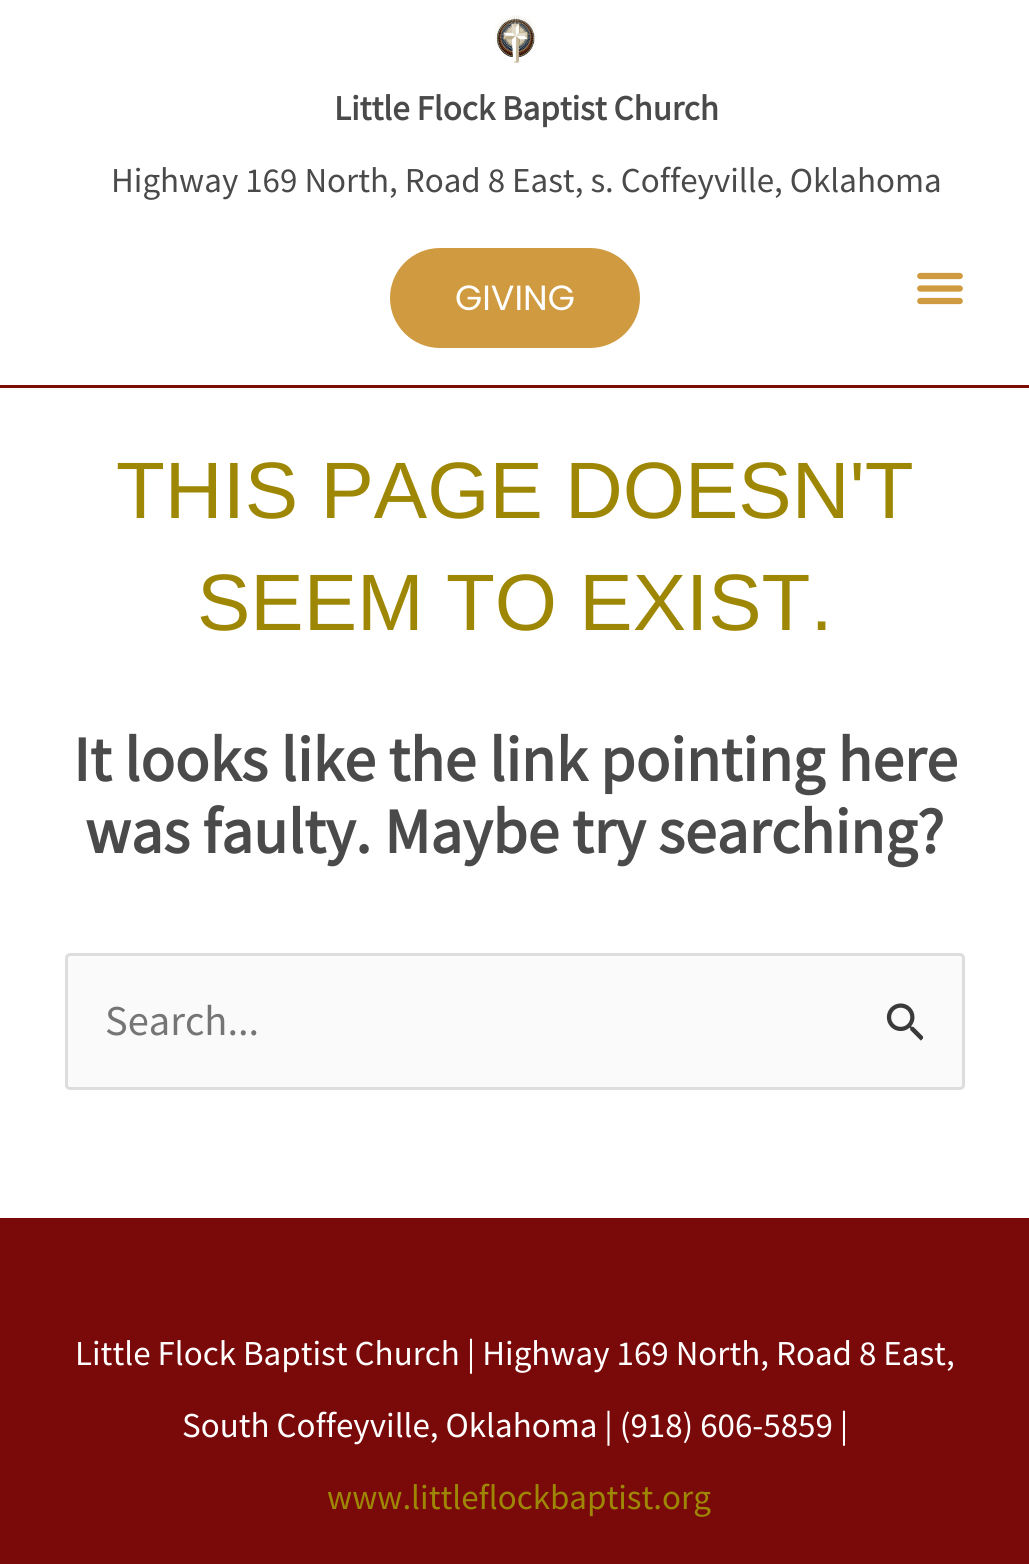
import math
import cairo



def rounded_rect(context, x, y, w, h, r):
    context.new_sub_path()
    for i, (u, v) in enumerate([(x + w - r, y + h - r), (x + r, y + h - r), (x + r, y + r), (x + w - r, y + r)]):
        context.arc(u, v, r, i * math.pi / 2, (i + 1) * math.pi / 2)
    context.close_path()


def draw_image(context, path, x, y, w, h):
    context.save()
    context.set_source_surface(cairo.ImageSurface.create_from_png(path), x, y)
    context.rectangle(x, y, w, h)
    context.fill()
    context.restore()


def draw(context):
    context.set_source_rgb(1, 1, 1)
    context.paint()
    context.set_source_rgb(124 / 255, 10 / 255, 7 / 255)
    context.rectangle(0, 385, 1029, 3)
    context.fill()
    draw_image(context, "images/1.png", 494, 15, 43, 48)
    context.set_source_rgb(208 / 255, 154 / 255, 64 / 255)
    rounded_rect(context, 391.5, 249.5, 247, 97, 48.5)
    context.fill_preserve()
    context.set_line_width(3)
    context.stroke()
    draw_image(context, "images/2.png", 917, 272, 46, 33)
    context.set_source_rgb(250 / 255, 250 / 255, 250 / 255)
    rounded_rect(context, 66.5, 954.5, 897, 134, 3.5)
    context.fill_preserve()
    context.set_source_rgb(221 / 255, 221 / 255, 221 / 255)
    context.stroke()
    draw_image(context, "images/3.png", 886, 1003, 37, 38)
    context.set_source_rgb(122 / 255, 10 / 255, 10 / 255)
    context.rectangle(0, 1218, 1029, 346)
    context.fill()
    context.select_font_face("Source Sans Pro", cairo.FontSlant.NORMAL, cairo.FontWeight.BOLD)
    context.set_font_size(35)
    context.set_source_rgb(74 / 255, 74 / 255, 74 / 255)
    context.move_to(334, 120)
    context.show_text("Little Flock Baptist Church")
    context.select_font_face("Source Sans Pro")
    context.move_to(111, 192)
    context.show_text("Highway 169 North, Road 8 East, s. Coffeyville, Oklahoma")
    context.select_font_face("Poppins")
    context.set_source_rgb(1, 1, 1)
    context.move_to(455, 310)
    context.show_text("GIVING")
    context.select_font_face("Liberation Sans")
    context.set_font_size(80)
    context.set_source_rgb(158 / 255, 135 / 255, 4 / 255)
    context.move_to(116, 518)
    context.show_text("THIS PAGE DOESN'T")
    context.move_to(197, 630)
    context.show_text("SEEM TO EXIST.")
    context.select_font_face("Source Sans Pro", cairo.FontSlant.NORMAL, cairo.FontWeight.BOLD)
    context.set_font_size(63.75)
    context.set_source_rgb(74 / 255, 74 / 255, 74 / 255)
    context.move_to(73, 781)
    context.show_text("It looks like the link pointing here")
    context.move_to(85, 853)
    context.show_text("was faulty. Maybe try searching?")
    context.select_font_face("Source Sans Pro")
    context.set_font_size(42.5)
    context.set_source_rgb(117 / 255, 117 / 255, 117 / 255)
    context.move_to(105, 1035)
    context.show_text("Search...")
    context.set_font_size(35)
    context.set_source_rgb(1, 1, 1)
    context.move_to(75, 1365)
    context.show_text("Little Flock Baptist Church | Highway 169 North, Road 8 East,")
    context.move_to(182, 1437)
    context.show_text("South Coffeyville, Oklahoma | (918) 606-5859 |")
    context.set_source_rgb(158 / 255, 135 / 255, 4 / 255)
    context.move_to(327, 1509)
    context.show_text("www.littleflockbaptist.org")


surface = cairo.ImageSurface(cairo.Format.RGB24, 1029, 1564)
context = cairo.Context(surface)
options = cairo.FontOptions()
options.set_hint_metrics(cairo.HintMetrics.OFF)
options.set_hint_style(cairo.HintStyle.NONE)
context.set_font_options(options)
context.set_miter_limit(4)
draw(context)
surface.write_to_png("out.png")
